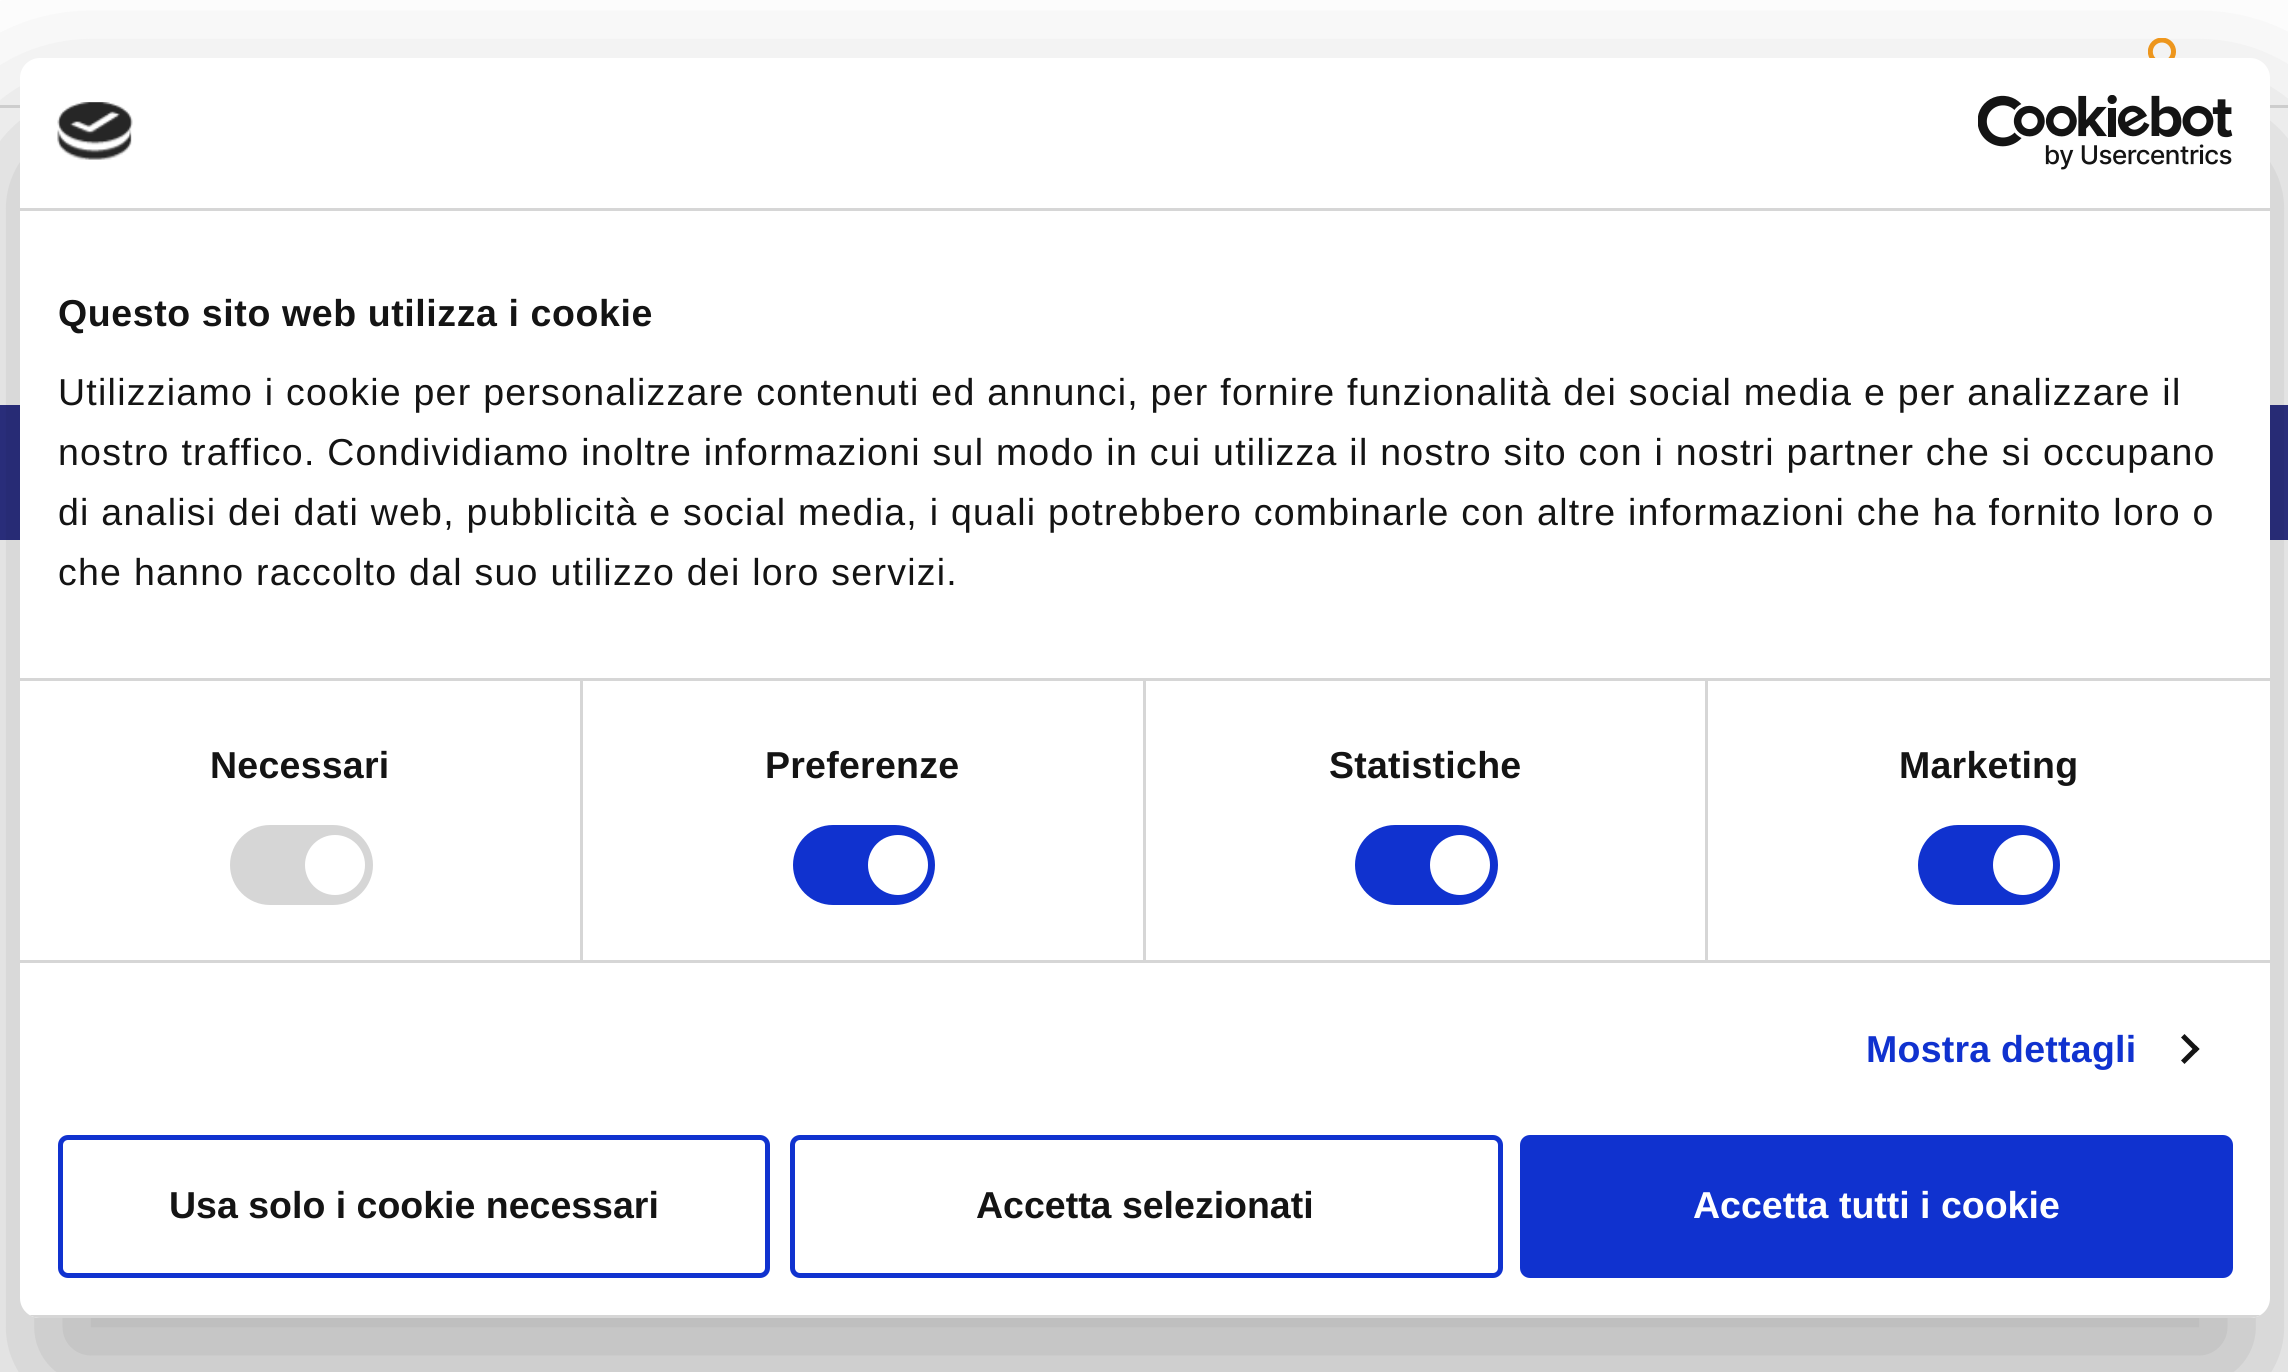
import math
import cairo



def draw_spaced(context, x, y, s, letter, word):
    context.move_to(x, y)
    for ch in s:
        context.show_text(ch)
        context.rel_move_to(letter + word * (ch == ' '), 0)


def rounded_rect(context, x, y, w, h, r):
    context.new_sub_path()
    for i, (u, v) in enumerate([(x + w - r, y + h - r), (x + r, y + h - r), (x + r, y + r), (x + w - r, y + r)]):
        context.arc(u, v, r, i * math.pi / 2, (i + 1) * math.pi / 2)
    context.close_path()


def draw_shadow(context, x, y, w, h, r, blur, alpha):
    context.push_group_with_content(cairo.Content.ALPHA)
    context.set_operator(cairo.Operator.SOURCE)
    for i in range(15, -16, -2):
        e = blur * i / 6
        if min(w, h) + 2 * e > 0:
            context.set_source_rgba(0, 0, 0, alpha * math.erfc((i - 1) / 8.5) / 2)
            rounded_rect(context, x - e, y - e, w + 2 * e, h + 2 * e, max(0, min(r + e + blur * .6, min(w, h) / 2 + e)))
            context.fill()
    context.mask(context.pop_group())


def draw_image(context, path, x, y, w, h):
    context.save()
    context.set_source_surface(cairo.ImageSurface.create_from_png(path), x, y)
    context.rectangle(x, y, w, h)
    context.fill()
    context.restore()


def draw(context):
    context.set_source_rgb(1, 1, 1)
    context.paint()
    draw_image(context, "images/1.png", 2148, 38, 28, 20)
    context.set_source_rgb(221 / 255, 221 / 255, 221 / 255)
    context.rectangle(0, 105, 2288, 3)
    context.fill()
    context.set_source_rgb(46 / 255, 51 / 255, 137 / 255)
    context.rectangle(0, 405, 2288, 135)
    context.fill()
    context.set_source_rgb(0, 0, 0)
    draw_shadow(context, 20, 138, 2250, 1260, 20, 85, 0.3)
    context.set_source_rgb(1, 1, 1)
    rounded_rect(context, 20, 58, 2250, 1260, 20)
    context.fill()
    context.set_source_rgb(214 / 255, 214 / 255, 214 / 255)
    context.rectangle(20, 208, 2250, 3)
    context.fill()
    draw_image(context, "images/2.png", 57, 102, 76, 58)
    draw_image(context, "images/3.png", 1978, 95, 255, 75)
    context.rectangle(580, 680, 3, 280)
    context.fill()
    context.rectangle(1143, 680, 3, 280)
    context.fill()
    context.rectangle(1705, 680, 3, 280)
    context.fill()
    context.rectangle(20, 678, 2250, 3)
    context.fill()
    context.rectangle(20, 960, 2250, 3)
    context.fill()
    rounded_rect(context, 230, 825, 143, 80, 40)
    context.fill()
    context.set_source_rgb(1, 1, 1)
    context.arc(335, 865, 30, 0, 2 * math.pi)
    context.fill()
    context.set_source_rgb(16 / 255, 50 / 255, 207 / 255)
    rounded_rect(context, 793, 825, 142, 80, 40)
    context.fill()
    context.set_source_rgb(1, 1, 1)
    context.arc(898, 865, 30, 0, 2 * math.pi)
    context.fill()
    context.set_source_rgb(16 / 255, 50 / 255, 207 / 255)
    rounded_rect(context, 1355, 825, 143, 80, 40)
    context.fill()
    context.set_source_rgb(1, 1, 1)
    context.arc(1460, 865, 30, 0, 2 * math.pi)
    context.fill()
    context.set_source_rgb(16 / 255, 50 / 255, 207 / 255)
    rounded_rect(context, 1918, 825, 142, 80, 40)
    context.fill()
    context.set_source_rgb(1, 1, 1)
    context.arc(2023, 865, 30, 0, 2 * math.pi)
    context.fill()
    context.set_source_rgb(20 / 255, 20 / 255, 20 / 255)
    context.new_path()
    context.move_to(2184.5, 1034)
    context.line_to(2199.5, 1049)
    context.line_to(2196, 1052.5)
    context.line_to(2181, 1037.5)
    context.close_path()
    context.fill()
    context.new_path()
    context.move_to(2196, 1045.5)
    context.line_to(2199.5, 1049)
    context.line_to(2184.5, 1064)
    context.line_to(2181, 1060.5)
    context.close_path()
    context.fill()
    context.save()
    rounded_rect(context, 20, 58, 2250, 1260, 20)
    context.clip()
    context.set_source_rgb(214 / 255, 214 / 255, 214 / 255)
    context.rectangle(29, 1315, 2232, 3)
    context.fill()
    context.restore()
    rounded_rect(context, 60.5, 1137.5, 707, 138, 7.5)
    context.set_source_rgb(16 / 255, 50 / 255, 207 / 255)
    context.set_line_width(5)
    context.stroke()
    rounded_rect(context, 792.5, 1137.5, 708, 138, 7.5)
    context.stroke()
    rounded_rect(context, 1522.5, 1137.5, 708, 138, 7.5)
    context.fill_preserve()
    context.stroke()
    context.select_font_face("Liberation Sans", cairo.FontSlant.NORMAL, cairo.FontWeight.BOLD)
    context.set_font_size(37.5)
    context.set_source_rgb(20 / 255, 20 / 255, 20 / 255)
    draw_spaced(context, 58, 326, "Questo sito web utilizza i cookie", 0.6, 0)
    context.select_font_face("Liberation Sans")
    draw_spaced(context, 58, 405, "Utilizziamo i cookie per personalizzare contenuti ed annunci, per fornire funzionalità dei social media e per analizzare il", 1.25, 0)
    draw_spaced(context, 58, 465, "nostro traffico. Condividiamo inoltre informazioni sul modo in cui utilizza il nostro sito con i nostri partner che si occupano", 1.25, 0)
    draw_spaced(context, 58, 525, "di analisi dei dati web, pubblicità e social media, i quali potrebbero combinarle con altre informazioni che ha fornito loro o", 1.25, 0)
    draw_spaced(context, 58, 585, "che hanno raccolto dal suo utilizzo dei loro servizi.", 1.25, 0)
    context.select_font_face("Liberation Sans", cairo.FontSlant.NORMAL, cairo.FontWeight.BOLD)
    draw_spaced(context, 210, 778, "Necessari", 0.25, 0)
    draw_spaced(context, 765, 778, "Preferenze", 0.25, 0)
    draw_spaced(context, 1329, 778, "Statistiche", 0.25, 0)
    draw_spaced(context, 1899, 778, "Marketing", 0.25, 0)
    context.set_source_rgb(16 / 255, 50 / 255, 207 / 255)
    draw_spaced(context, 1866, 1062, "Mostra dettagli", 0.25, 0)
    context.set_source_rgb(20 / 255, 20 / 255, 20 / 255)
    context.move_to(169, 1218)
    context.show_text("Usa solo i cookie necessari")
    context.move_to(976, 1218)
    context.show_text("Accetta selezionati")
    context.set_source_rgb(1, 1, 1)
    context.move_to(1693, 1218)
    context.show_text("Accetta tutti i cookie")


surface = cairo.ImageSurface(cairo.Format.RGB24, 2288, 1372)
context = cairo.Context(surface)
options = cairo.FontOptions()
options.set_hint_metrics(cairo.HintMetrics.OFF)
options.set_hint_style(cairo.HintStyle.NONE)
context.set_font_options(options)
context.set_miter_limit(4)
draw(context)
surface.write_to_png("out.png")
